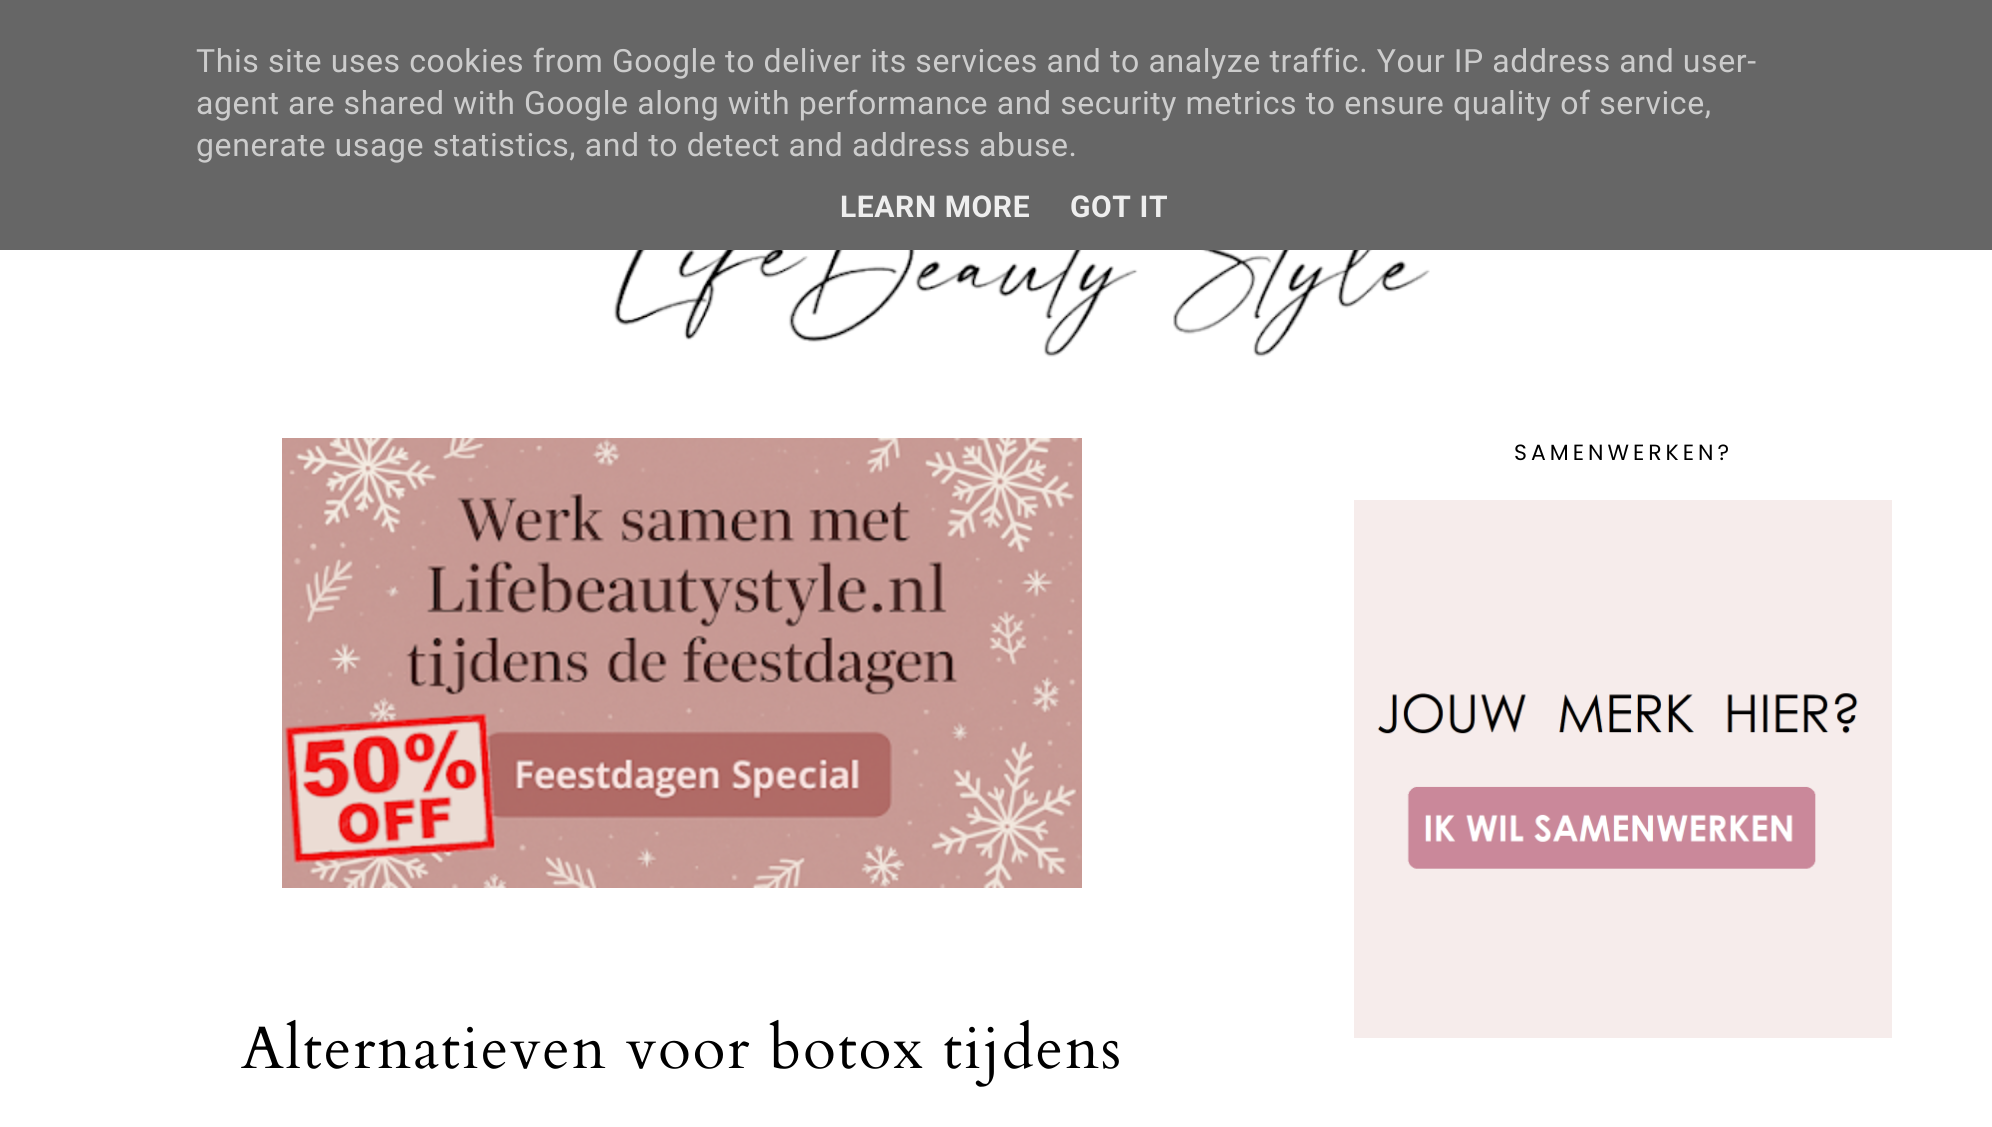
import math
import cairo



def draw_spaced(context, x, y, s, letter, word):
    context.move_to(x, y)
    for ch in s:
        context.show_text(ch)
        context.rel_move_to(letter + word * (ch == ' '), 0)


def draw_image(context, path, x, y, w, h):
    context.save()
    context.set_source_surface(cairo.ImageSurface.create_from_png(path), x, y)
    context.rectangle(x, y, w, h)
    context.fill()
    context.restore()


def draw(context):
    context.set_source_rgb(1, 1, 1)
    context.paint()
    context.set_source_rgb(102 / 255, 102 / 255, 102 / 255)
    context.rectangle(0, 0, 1992, 250)
    context.fill()
    draw_image(context, "images/1.png", 613, 250, 817, 107)
    draw_image(context, "images/2.png", 1354, 500, 538, 538)
    draw_image(context, "images/3.png", 282, 438, 800, 450)
    context.select_font_face("Roboto")
    context.set_font_size(32)
    context.set_source_rgb(204 / 255, 204 / 255, 204 / 255)
    draw_spaced(context, 196, 72, "This site uses cookies from Google to deliver its services and to analyze traffic. Your IP address and user-", 0.6, 0)
    draw_spaced(context, 196, 114, "agent are shared with Google along with performance and security metrics to ensure quality of service,", 0.6, 0)
    draw_spaced(context, 196, 156, "generate usage statistics, and to detect and address abuse.", 0.6, 0)
    context.select_font_face("Roboto", cairo.FontSlant.NORMAL, cairo.FontWeight.BOLD)
    context.set_font_size(30)
    context.set_source_rgb(238 / 255, 238 / 255, 238 / 255)
    draw_spaced(context, 840, 217, "LEARN MORE", 0.6, 0)
    draw_spaced(context, 1070, 217, "GOT IT", 0.6, 0)
    context.select_font_face("Poppins")
    context.set_font_size(22)
    context.set_source_rgb(0, 0, 0)
    draw_spaced(context, 1514, 460, "SAMENWERKEN?", 4, 0)
    context.select_font_face("Cardo")
    context.set_font_size(60)
    draw_spaced(context, 241, 1068, "Alternatieven voor botox tijdens", 2, 0)


surface = cairo.ImageSurface(cairo.Format.RGB24, 1992, 1127)
context = cairo.Context(surface)
options = cairo.FontOptions()
options.set_hint_metrics(cairo.HintMetrics.OFF)
options.set_hint_style(cairo.HintStyle.NONE)
context.set_font_options(options)
context.set_miter_limit(4)
draw(context)
surface.write_to_png("out.png")
